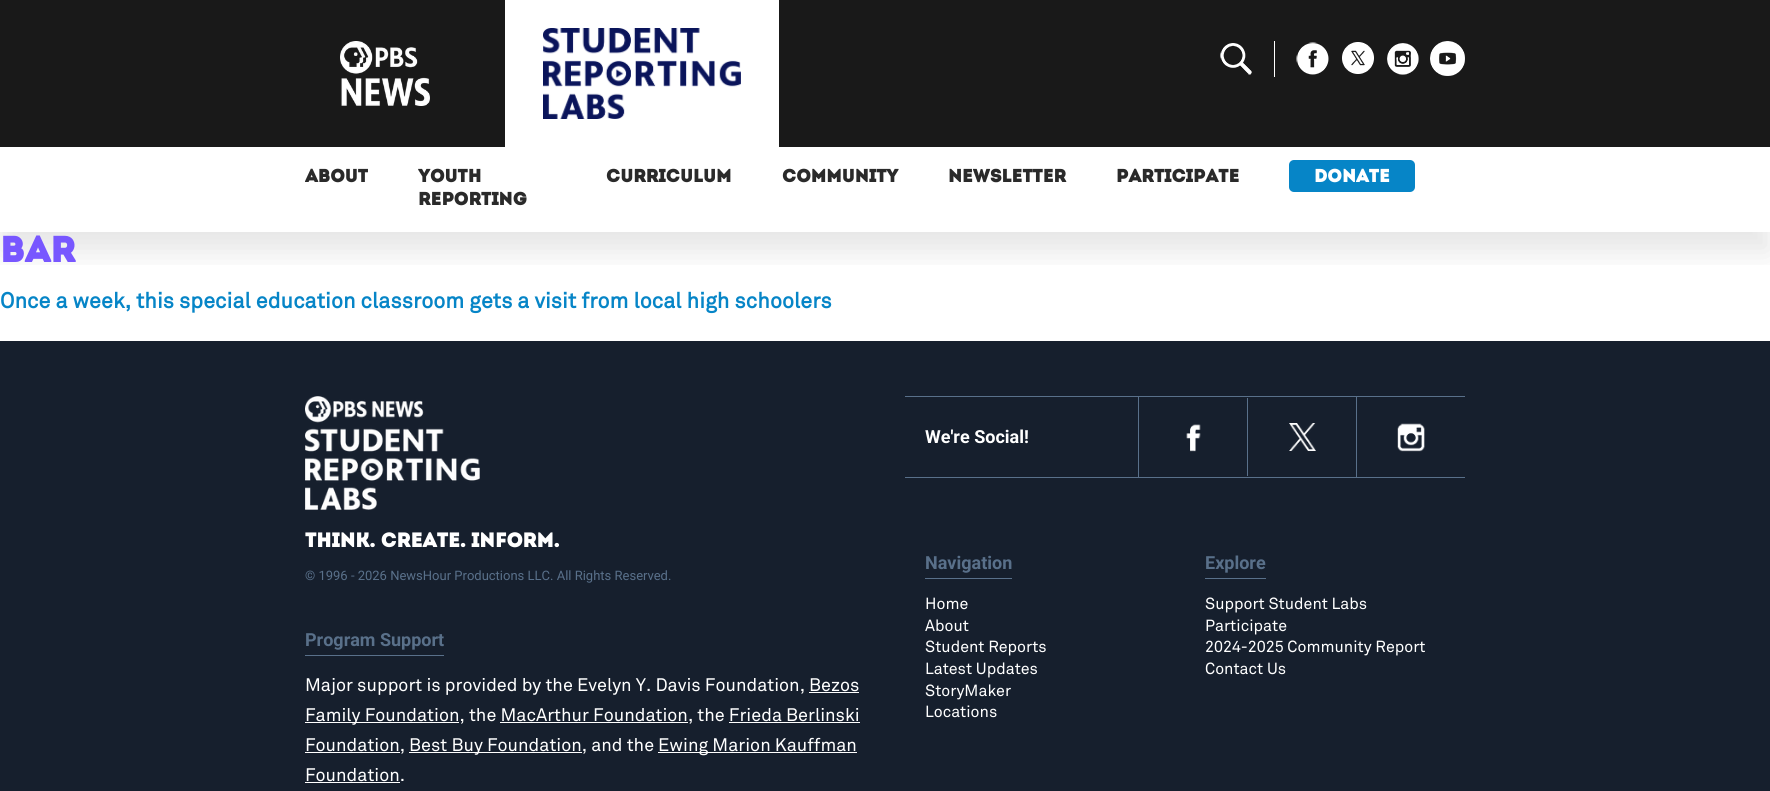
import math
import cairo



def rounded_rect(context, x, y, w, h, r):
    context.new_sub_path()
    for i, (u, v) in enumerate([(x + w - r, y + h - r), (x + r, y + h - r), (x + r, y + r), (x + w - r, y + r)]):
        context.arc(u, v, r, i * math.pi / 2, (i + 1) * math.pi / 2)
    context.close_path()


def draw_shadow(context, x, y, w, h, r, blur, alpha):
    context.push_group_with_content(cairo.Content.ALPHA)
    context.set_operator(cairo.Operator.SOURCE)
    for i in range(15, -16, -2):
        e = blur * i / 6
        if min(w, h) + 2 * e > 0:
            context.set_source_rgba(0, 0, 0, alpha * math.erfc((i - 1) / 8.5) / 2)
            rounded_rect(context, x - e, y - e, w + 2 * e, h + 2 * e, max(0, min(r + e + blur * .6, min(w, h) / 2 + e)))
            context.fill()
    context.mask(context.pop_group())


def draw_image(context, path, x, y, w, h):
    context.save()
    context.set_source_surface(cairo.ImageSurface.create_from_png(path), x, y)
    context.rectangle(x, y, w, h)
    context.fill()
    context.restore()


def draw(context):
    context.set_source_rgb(1, 1, 1)
    context.paint()
    context.set_source_rgb(25 / 255, 25 / 255, 25 / 255)
    context.rectangle(0, 0, 1770, 147)
    context.fill()
    draw_image(context, "images/1.png", 340, 41, 90, 65)
    context.save()
    context.rectangle(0, 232, 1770, 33)
    context.clip()
    context.set_source_rgb(0, 0, 0)
    draw_shadow(context, 0, 167, 1770, 85, 0, 15, 0.1)
    context.restore()
    context.set_source_rgb(1, 1, 1)
    context.rectangle(505, 0, 274, 147)
    context.fill()
    draw_image(context, "images/2.png", 543, 28, 198, 91)
    context.rectangle(1274, 41, 1, 36)
    context.fill()
    draw_image(context, "images/3.png", 1220, 43, 32, 32)
    draw_image(context, "images/4.png", 1296, 42, 33, 33)
    draw_image(context, "images/5.png", 1342, 42, 32, 32)
    draw_image(context, "images/6.png", 1387, 43, 32, 32)
    draw_image(context, "images/7.png", 1430, 41, 35, 35)
    context.set_source_rgb(6 / 255, 133 / 255, 199 / 255)
    rounded_rect(context, 1289, 160, 126, 32, 5)
    context.fill()
    context.set_source_rgb(22 / 255, 31 / 255, 45 / 255)
    context.rectangle(0, 341, 1770, 450)
    context.fill()
    draw_image(context, "images/8.png", 305, 396, 175, 114)
    context.set_source_rgb(89 / 255, 112 / 255, 138 / 255)
    context.rectangle(305, 655, 139, 1)
    context.fill()
    context.set_source_rgb(1, 1, 1)
    context.rectangle(809, 692, 50, 1)
    context.fill()
    context.rectangle(305, 722, 154, 1)
    context.fill()
    context.rectangle(500, 722, 188, 1)
    context.fill()
    context.rectangle(729, 722, 131, 1)
    context.fill()
    context.rectangle(305, 752, 95, 1)
    context.fill()
    context.rectangle(409, 752, 173, 1)
    context.fill()
    context.rectangle(658, 752, 199, 1)
    context.fill()
    context.rectangle(305, 782, 95, 1)
    context.fill()
    context.set_source_rgb(89 / 255, 112 / 255, 138 / 255)
    context.rectangle(905, 396, 560, 1)
    context.fill()
    context.rectangle(905, 477, 560, 1)
    context.fill()
    context.rectangle(1138, 397, 1, 80)
    context.fill()
    draw_image(context, "images/9.png", 1186, 424, 15, 28)
    context.rectangle(1247, 398, 1, 78)
    context.fill()
    draw_image(context, "images/10.png", 1289, 423, 27, 28)
    context.rectangle(1356, 397, 1, 80)
    context.fill()
    draw_image(context, "images/11.png", 1397, 423, 28, 29)
    context.rectangle(925, 578, 87, 1)
    context.fill()
    context.rectangle(1205, 578, 61, 1)
    context.fill()
    context.select_font_face("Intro", cairo.FontSlant.NORMAL, cairo.FontWeight.BOLD)
    context.set_font_size(18)
    context.set_source_rgb(42 / 255, 42 / 255, 42 / 255)
    context.move_to(305, 182)
    context.show_text("ABOUT")
    context.move_to(418, 182)
    context.show_text("YOUTH")
    context.move_to(418, 205)
    context.show_text("REPORTING")
    context.move_to(606, 182)
    context.show_text("CURRICULUM")
    context.move_to(782, 182)
    context.show_text("COMMUNITY")
    context.move_to(948, 182)
    context.show_text("NEWSLETTER")
    context.move_to(1116, 182)
    context.show_text("PARTICIPATE")
    context.set_source_rgb(1, 1, 1)
    context.move_to(1314, 182)
    context.show_text("DONATE")
    context.set_font_size(36)
    context.set_source_rgb(120 / 255, 87 / 255, 1)
    context.move_to(0, 262)
    context.show_text("bar")
    context.select_font_face("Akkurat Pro", cairo.FontSlant.NORMAL, cairo.FontWeight.BOLD)
    context.set_font_size(21.6)
    context.set_source_rgb(6 / 255, 133 / 255, 199 / 255)
    context.move_to(0, 308)
    context.show_text("Once a week, this special education classroom gets a visit from local high schoolers")
    context.select_font_face("Intro", cairo.FontSlant.NORMAL, cairo.FontWeight.BOLD)
    context.set_font_size(20)
    context.set_source_rgb(1, 1, 1)
    context.move_to(305, 547)
    context.show_text("Think. Create. Inform.")
    context.select_font_face("Roboto")
    context.set_font_size(13)
    context.set_source_rgb(89 / 255, 112 / 255, 138 / 255)
    context.move_to(305, 580)
    context.show_text("© 1996 - 2026 NewsHour Productions LLC. All Rights Reserved.")
    context.select_font_face("Roboto", cairo.FontSlant.NORMAL, cairo.FontWeight.BOLD)
    context.set_font_size(18)
    context.move_to(305, 646)
    context.show_text("Program Support")
    context.select_font_face("Akkurat Pro")
    context.set_source_rgb(1, 1, 1)
    context.move_to(305, 691)
    context.show_text("Major support is provided by the Evelyn Y. Davis Foundation, Bezos")
    context.move_to(305, 721)
    context.show_text("Family Foundation, the MacArthur Foundation, the Frieda Berlinski")
    context.move_to(305, 751)
    context.show_text("Foundation,")
    context.move_to(409, 751)
    context.show_text("Best Buy Foundation, and the")
    context.move_to(658, 751)
    context.show_text("Ewing Marion Kauffman")
    context.move_to(305, 781)
    context.show_text("Foundation.")
    context.select_font_face("Roboto", cairo.FontSlant.NORMAL, cairo.FontWeight.BOLD)
    context.move_to(925, 443)
    context.show_text("We're Social!")
    context.set_source_rgb(89 / 255, 112 / 255, 138 / 255)
    context.move_to(925, 569)
    context.show_text("Navigation")
    context.select_font_face("Akkurat Pro")
    context.set_font_size(16)
    context.set_source_rgb(1, 1, 1)
    context.move_to(925, 609)
    context.show_text("Home")
    context.move_to(925, 631)
    context.show_text("About")
    context.move_to(925, 652)
    context.show_text("Student Reports")
    context.move_to(925, 674)
    context.show_text("Latest Updates")
    context.move_to(925, 696)
    context.show_text("StoryMaker")
    context.move_to(925, 717)
    context.show_text("Locations")
    context.select_font_face("Roboto", cairo.FontSlant.NORMAL, cairo.FontWeight.BOLD)
    context.set_font_size(18)
    context.set_source_rgb(89 / 255, 112 / 255, 138 / 255)
    context.move_to(1205, 569)
    context.show_text("Explore")
    context.select_font_face("Akkurat Pro")
    context.set_font_size(16)
    context.set_source_rgb(1, 1, 1)
    context.move_to(1205, 609)
    context.show_text("Support Student Labs")
    context.move_to(1205, 631)
    context.show_text("Participate")
    context.move_to(1205, 652)
    context.show_text("2024-2025 Community Report")
    context.move_to(1205, 674)
    context.show_text("Contact Us")


surface = cairo.ImageSurface(cairo.Format.RGB24, 1770, 791)
context = cairo.Context(surface)
options = cairo.FontOptions()
options.set_hint_metrics(cairo.HintMetrics.OFF)
options.set_hint_style(cairo.HintStyle.NONE)
context.set_font_options(options)
context.set_miter_limit(4)
draw(context)
surface.write_to_png("out.png")
